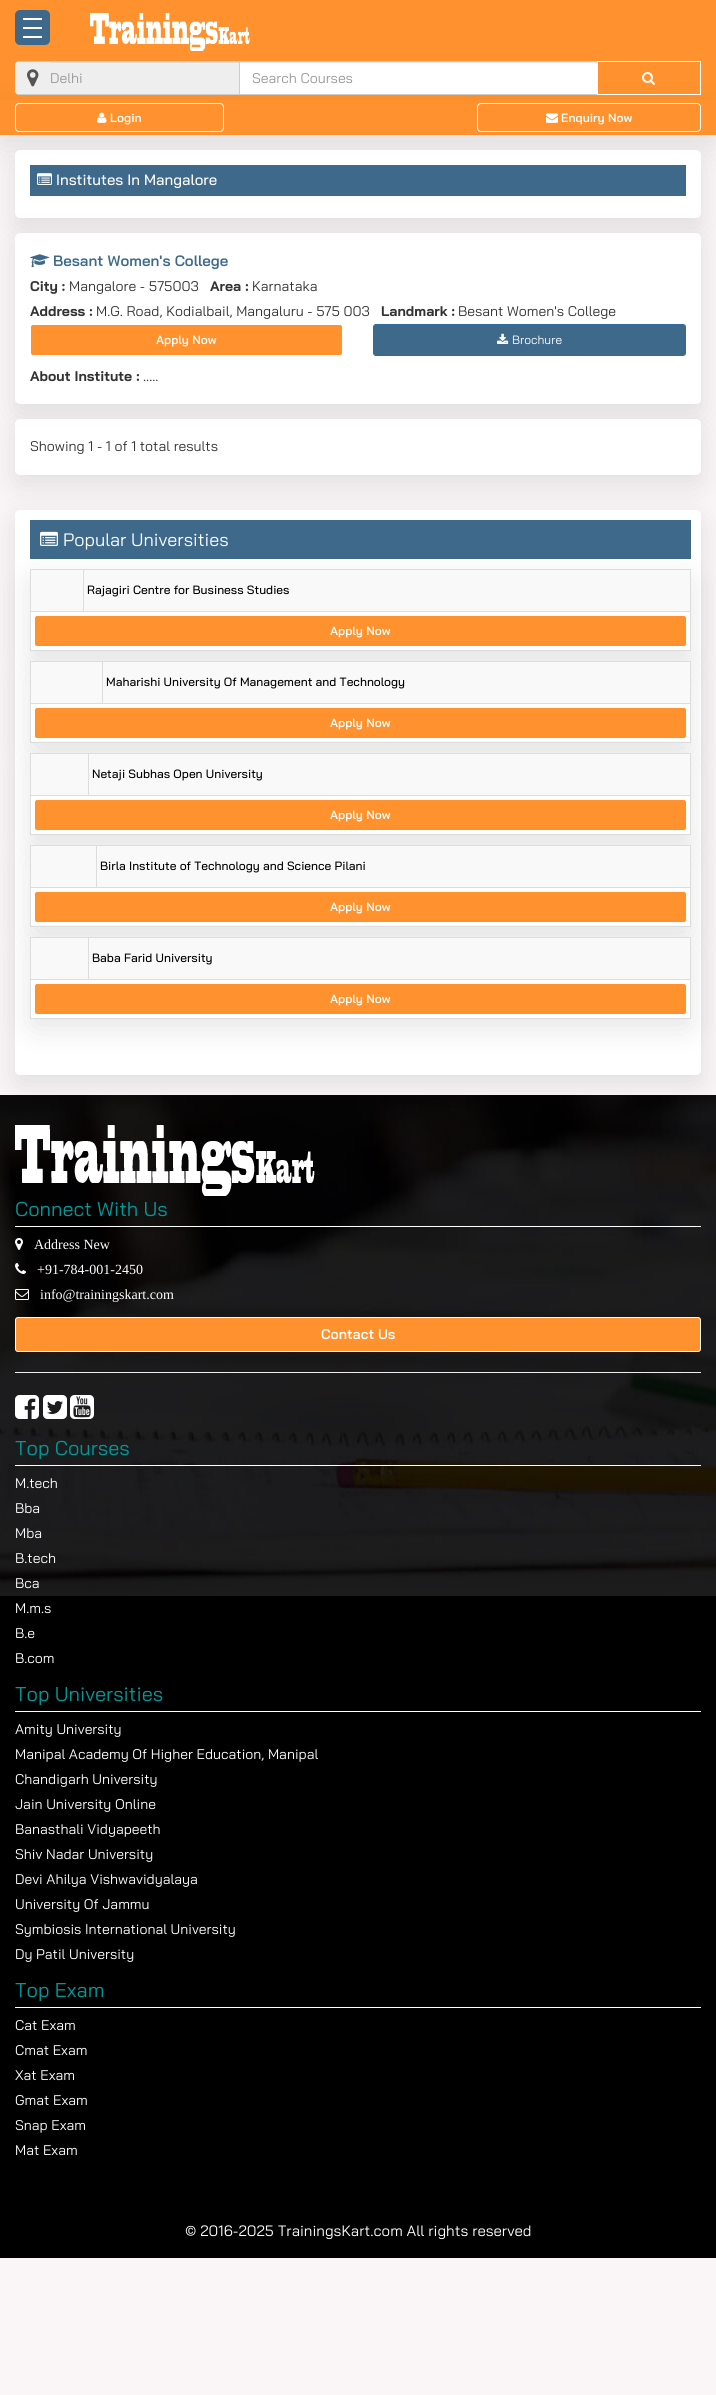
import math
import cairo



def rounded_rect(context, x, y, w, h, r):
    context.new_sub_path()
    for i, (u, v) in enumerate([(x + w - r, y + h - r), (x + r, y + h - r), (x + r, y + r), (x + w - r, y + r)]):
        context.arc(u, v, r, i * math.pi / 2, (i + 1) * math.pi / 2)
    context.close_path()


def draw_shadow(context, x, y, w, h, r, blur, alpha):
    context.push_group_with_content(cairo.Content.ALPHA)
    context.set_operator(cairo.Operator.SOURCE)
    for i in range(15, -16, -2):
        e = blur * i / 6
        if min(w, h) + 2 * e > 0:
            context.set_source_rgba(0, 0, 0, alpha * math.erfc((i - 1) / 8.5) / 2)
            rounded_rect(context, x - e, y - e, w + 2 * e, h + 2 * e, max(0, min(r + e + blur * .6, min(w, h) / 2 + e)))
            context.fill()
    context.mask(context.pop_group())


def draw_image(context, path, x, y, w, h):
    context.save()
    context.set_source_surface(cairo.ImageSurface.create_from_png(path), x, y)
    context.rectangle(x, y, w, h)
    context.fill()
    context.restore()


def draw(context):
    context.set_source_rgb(250 / 255, 246 / 255, 248 / 255)
    context.paint()
    context.set_source_rgb(1, 146 / 255, 46 / 255)
    context.rectangle(0, 0, 716, 100)
    context.fill()
    context.set_source_rgb(62 / 255, 105 / 255, 139 / 255)
    rounded_rect(context, 15, 10, 35, 35, 5)
    context.fill()
    context.set_source_rgb(1, 1, 1)
    context.rectangle(23, 18, 19, 2)
    context.fill()
    context.rectangle(23, 27, 19, 2)
    context.fill()
    context.rectangle(23, 36, 19, 2)
    context.fill()
    draw_image(context, "images/1.png", 90, 13, 160, 38)
    context.set_source_rgb(0, 0, 0)
    draw_shadow(context, 0, 110, 716, 35, 0, 15, 0.1)
    context.set_source_rgb(238 / 255, 238 / 255, 238 / 255)
    context.new_path()
    context.move_to(19, 61)
    context.line_to(50, 61)
    context.line_to(50, 95)
    context.line_to(19, 95)
    context.curve_to(17, 95, 15, 93, 15, 91)
    context.line_to(15, 65)
    context.curve_to(15, 63, 17, 61, 19, 61)
    context.close_path()
    context.fill()
    context.set_source_rgb(204 / 255, 204 / 255, 204 / 255)
    context.rectangle(17, 61, 33, 1)
    context.fill()
    context.rectangle(17, 94, 33, 1)
    context.fill()
    draw_image(context, "images/2.png", 27, 69, 12, 18)
    context.set_source_rgb(238 / 255, 238 / 255, 238 / 255)
    context.rectangle(50, 63, 189, 31)
    context.fill()
    context.set_source_rgb(220 / 255, 220 / 255, 220 / 255)
    context.rectangle(50, 62, 189, 1)
    context.fill()
    context.set_source_rgb(1, 1, 1)
    context.rectangle(240, 63, 357, 31)
    context.fill()
    context.set_source_rgb(236 / 255, 236 / 255, 236 / 255)
    context.rectangle(240, 62, 357, 1)
    context.fill()
    context.set_source_rgb(204 / 255, 204 / 255, 204 / 255)
    context.rectangle(50, 61, 547, 1)
    context.fill()
    context.rectangle(50, 94, 547, 1)
    context.fill()
    context.rectangle(239, 61, 1, 34)
    context.fill()
    context.set_source_rgb(1, 146 / 255, 46 / 255)
    context.rectangle(598, 91, 102, 3)
    context.fill()
    context.rectangle(597.5, 61.5, 103, 33)
    context.set_source_rgb(1, 1, 1)
    context.set_line_width(1)
    context.stroke()
    draw_image(context, "images/3.png", 642, 72, 13, 13)
    context.set_source_rgb(1, 146 / 255, 46 / 255)
    context.rectangle(0, 100, 716, 35)
    context.fill()
    rounded_rect(context, 15.5, 103.5, 208, 28, 3.5)
    context.set_source_rgb(1, 1, 1)
    context.stroke()
    draw_image(context, "images/4.png", 97, 112, 10, 11)
    rounded_rect(context, 477.5, 103.5, 223, 28, 3.5)
    context.stroke()
    draw_image(context, "images/5.png", 546, 113, 12, 10)
    context.set_source_rgb(0, 0, 0)
    draw_shadow(context, 15, 160, 686, 68, 5, 15, 0.1)
    context.set_source_rgb(1, 1, 1)
    rounded_rect(context, 15, 150, 686, 68, 5)
    context.fill()
    context.set_source_rgb(62 / 255, 105 / 255, 139 / 255)
    context.rectangle(30, 165, 656, 31)
    context.fill()
    draw_image(context, "images/6.png", 37, 173, 15, 12)
    context.set_source_rgb(0, 0, 0)
    draw_shadow(context, 15, 243, 686, 171, 5, 15, 0.1)
    context.set_source_rgb(1, 1, 1)
    rounded_rect(context, 15, 233, 686, 171, 5)
    context.fill()
    draw_image(context, "images/7.png", 30, 254, 20, 14)
    context.set_source_rgb(1, 146 / 255, 46 / 255)
    rounded_rect(context, 30.5, 324.5, 312, 31, 2.5)
    context.fill_preserve()
    context.set_source_rgb(1, 1, 1)
    context.stroke()
    context.set_source_rgb(62 / 255, 105 / 255, 139 / 255)
    rounded_rect(context, 373.5, 324.5, 312, 31, 2.5)
    context.fill_preserve()
    context.set_source_rgb(46 / 255, 109 / 255, 164 / 255)
    context.stroke()
    draw_image(context, "images/8.png", 497, 333, 12, 11)
    context.set_source_rgb(0, 0, 0)
    draw_shadow(context, 15, 429, 686, 56, 5, 15, 0.1)
    context.set_source_rgb(1, 1, 1)
    rounded_rect(context, 15, 419, 686, 56, 5)
    context.fill()
    draw_image(context, "images/10.png", 0, 1095, 716, 501)
    context.set_source_rgb(0, 0, 0)
    draw_shadow(context, 15, 520, 686, 565, 5, 15, 0.1)
    context.set_source_rgb(1, 1, 1)
    rounded_rect(context, 15, 510, 686, 565, 5)
    context.fill()
    context.set_source_rgb(62 / 255, 105 / 255, 139 / 255)
    context.rectangle(30, 520, 661, 39)
    context.fill()
    context.set_source_rgb(0, 0, 0)
    draw_shadow(context, 30, 579, 661, 82, 5, 15, 0.1)
    draw_image(context, "images/9.png", 40, 531, 18, 15)
    context.set_source_rgb(1, 1, 1)
    rounded_rect(context, 30, 569, 661, 82, 5)
    context.fill()
    context.set_source_rgb(221 / 255, 221 / 255, 221 / 255)
    context.rectangle(30, 569, 661, 1)
    context.fill()
    context.rectangle(690, 569, 1, 82)
    context.fill()
    context.rectangle(30, 650, 661, 1)
    context.fill()
    context.rectangle(30, 569, 1, 82)
    context.fill()
    context.set_source_rgb(249 / 255, 249 / 255, 249 / 255)
    context.rectangle(31, 570, 659, 41)
    context.fill()
    context.set_source_rgb(221 / 255, 221 / 255, 221 / 255)
    context.rectangle(30, 611, 661, 1)
    context.fill()
    context.rectangle(83, 569, 1, 43)
    context.fill()
    context.set_source_rgb(1, 146 / 255, 46 / 255)
    rounded_rect(context, 34.5, 615.5, 652, 31, 2.5)
    context.fill_preserve()
    context.set_source_rgb(1, 1, 1)
    context.stroke()
    context.set_source_rgb(0, 0, 0)
    draw_shadow(context, 30, 671, 661, 82, 5, 15, 0.1)
    context.set_source_rgb(1, 1, 1)
    rounded_rect(context, 30, 661, 661, 82, 5)
    context.fill()
    context.set_source_rgb(221 / 255, 221 / 255, 221 / 255)
    context.rectangle(30, 661, 661, 1)
    context.fill()
    context.rectangle(690, 661, 1, 82)
    context.fill()
    context.rectangle(30, 742, 661, 1)
    context.fill()
    context.rectangle(30, 661, 1, 82)
    context.fill()
    context.set_source_rgb(249 / 255, 249 / 255, 249 / 255)
    context.rectangle(31, 662, 659, 41)
    context.fill()
    context.set_source_rgb(221 / 255, 221 / 255, 221 / 255)
    context.rectangle(30, 703, 661, 1)
    context.fill()
    context.rectangle(102, 661, 1, 43)
    context.fill()
    context.set_source_rgb(1, 146 / 255, 46 / 255)
    rounded_rect(context, 34.5, 707.5, 652, 31, 2.5)
    context.fill_preserve()
    context.set_source_rgb(1, 1, 1)
    context.stroke()
    context.set_source_rgb(0, 0, 0)
    draw_shadow(context, 30, 763, 661, 82, 5, 15, 0.1)
    context.set_source_rgb(1, 1, 1)
    rounded_rect(context, 30, 753, 661, 82, 5)
    context.fill()
    context.set_source_rgb(221 / 255, 221 / 255, 221 / 255)
    context.rectangle(30, 753, 661, 1)
    context.fill()
    context.rectangle(690, 753, 1, 82)
    context.fill()
    context.rectangle(30, 834, 661, 1)
    context.fill()
    context.rectangle(30, 753, 1, 82)
    context.fill()
    context.set_source_rgb(249 / 255, 249 / 255, 249 / 255)
    context.rectangle(31, 754, 659, 41)
    context.fill()
    context.set_source_rgb(221 / 255, 221 / 255, 221 / 255)
    context.rectangle(30, 795, 661, 1)
    context.fill()
    context.rectangle(88, 753, 1, 43)
    context.fill()
    context.set_source_rgb(1, 146 / 255, 46 / 255)
    rounded_rect(context, 34.5, 799.5, 652, 31, 2.5)
    context.fill_preserve()
    context.set_source_rgb(1, 1, 1)
    context.stroke()
    context.set_source_rgb(0, 0, 0)
    draw_shadow(context, 30, 855, 661, 82, 5, 15, 0.1)
    context.set_source_rgb(1, 1, 1)
    rounded_rect(context, 30, 845, 661, 82, 5)
    context.fill()
    context.set_source_rgb(221 / 255, 221 / 255, 221 / 255)
    context.rectangle(30, 845, 661, 1)
    context.fill()
    context.rectangle(690, 845, 1, 82)
    context.fill()
    context.rectangle(30, 926, 661, 1)
    context.fill()
    context.rectangle(30, 845, 1, 82)
    context.fill()
    context.set_source_rgb(249 / 255, 249 / 255, 249 / 255)
    context.rectangle(31, 846, 659, 41)
    context.fill()
    context.set_source_rgb(221 / 255, 221 / 255, 221 / 255)
    context.rectangle(30, 887, 661, 1)
    context.fill()
    context.rectangle(96, 845, 1, 43)
    context.fill()
    context.set_source_rgb(1, 146 / 255, 46 / 255)
    rounded_rect(context, 34.5, 891.5, 652, 31, 2.5)
    context.fill_preserve()
    context.set_source_rgb(1, 1, 1)
    context.stroke()
    context.set_source_rgb(0, 0, 0)
    draw_shadow(context, 30, 947, 661, 82, 5, 15, 0.1)
    context.set_source_rgb(1, 1, 1)
    rounded_rect(context, 30, 937, 661, 82, 5)
    context.fill()
    context.set_source_rgb(221 / 255, 221 / 255, 221 / 255)
    context.rectangle(30, 937, 661, 1)
    context.fill()
    context.rectangle(690, 937, 1, 82)
    context.fill()
    context.rectangle(30, 1018, 661, 1)
    context.fill()
    context.rectangle(30, 937, 1, 82)
    context.fill()
    context.set_source_rgb(249 / 255, 249 / 255, 249 / 255)
    context.rectangle(31, 938, 659, 41)
    context.fill()
    context.set_source_rgb(221 / 255, 221 / 255, 221 / 255)
    context.rectangle(30, 979, 661, 1)
    context.fill()
    context.rectangle(88, 937, 1, 43)
    context.fill()
    context.set_source_rgb(1, 146 / 255, 46 / 255)
    rounded_rect(context, 34.5, 983.5, 652, 31, 2.5)
    context.fill_preserve()
    context.set_source_rgb(1, 1, 1)
    context.stroke()
    context.set_source_rgb(0, 0, 0)
    context.rectangle(0, 1596, 716, 662)
    context.fill()
    draw_image(context, "images/11.png", 15, 1125, 300, 71)
    context.set_source_rgb(1, 1, 1)
    context.rectangle(15, 1226, 686, 1)
    context.fill()
    draw_image(context, "images/12.png", 15, 1238, 8, 12)
    draw_image(context, "images/13.png", 15, 1263, 11, 11)
    draw_image(context, "images/14.png", 15, 1289, 14, 11)
    context.set_source_rgb(1, 146 / 255, 46 / 255)
    rounded_rect(context, 15.5, 1317.5, 685, 34, 2.5)
    context.fill_preserve()
    context.set_source_rgb(1, 1, 1)
    context.stroke()
    context.set_source_rgb(238 / 255, 238 / 255, 238 / 255)
    context.rectangle(15, 1372, 686, 1)
    context.fill()
    draw_image(context, "images/15.png", 15, 1395, 24, 24)
    draw_image(context, "images/16.png", 43, 1395, 24, 24)
    draw_image(context, "images/17.png", 70, 1395, 24, 24)
    context.set_source_rgb(1, 1, 1)
    context.rectangle(15, 1465, 686, 1)
    context.fill()
    context.rectangle(15, 1711, 686, 1)
    context.fill()
    context.rectangle(15, 2007, 686, 1)
    context.fill()
    context.select_font_face("Bai Jamjuree")
    context.set_font_size(14)
    context.set_source_rgb(153 / 255, 153 / 255, 153 / 255)
    context.move_to(50, 83)
    context.show_text("Delhi")
    context.move_to(252, 83)
    context.show_text("Search Courses")
    context.select_font_face("Bai Jamjuree SemiBold")
    context.set_font_size(12)
    context.set_source_rgb(1, 1, 1)
    context.move_to(110, 122)
    context.show_text("Login")
    context.move_to(561, 122)
    context.show_text("Enquiry Now")
    context.select_font_face("Bai Jamjuree Medium")
    context.set_font_size(15)
    context.move_to(56, 185)
    context.show_text("Institutes In Mangalore")
    context.select_font_face("Bai Jamjuree SemiBold")
    context.set_source_rgb(62 / 255, 105 / 255, 139 / 255)
    context.move_to(53, 266)
    context.show_text("Besant Women's College")
    context.select_font_face("Bai Jamjuree", cairo.FontSlant.NORMAL, cairo.FontWeight.BOLD)
    context.set_font_size(14)
    context.set_source_rgb(51 / 255, 51 / 255, 51 / 255)
    context.move_to(30, 291)
    context.show_text("City :")
    context.select_font_face("Bai Jamjuree")
    context.move_to(69, 291)
    context.show_text("Mangalore - 575003")
    context.select_font_face("Bai Jamjuree", cairo.FontSlant.NORMAL, cairo.FontWeight.BOLD)
    context.move_to(210, 291)
    context.show_text("Area :")
    context.select_font_face("Bai Jamjuree")
    context.move_to(252, 291)
    context.show_text("Karnataka")
    context.select_font_face("Bai Jamjuree", cairo.FontSlant.NORMAL, cairo.FontWeight.BOLD)
    context.move_to(30, 316)
    context.show_text("Address :")
    context.select_font_face("Bai Jamjuree")
    context.move_to(96, 316)
    context.show_text("M.G. Road, Kodialbail, Mangaluru - 575 003")
    context.select_font_face("Bai Jamjuree", cairo.FontSlant.NORMAL, cairo.FontWeight.BOLD)
    context.move_to(381, 316)
    context.show_text("Landmark :")
    context.select_font_face("Bai Jamjuree")
    context.move_to(458, 316)
    context.show_text("Besant Women's College")
    context.select_font_face("Bai Jamjuree SemiBold")
    context.set_font_size(12)
    context.set_source_rgb(1, 1, 1)
    context.move_to(156, 344)
    context.show_text("Apply Now")
    context.select_font_face("Bai Jamjuree")
    context.move_to(512, 344)
    context.show_text("Brochure")
    context.select_font_face("Bai Jamjuree", cairo.FontSlant.NORMAL, cairo.FontWeight.BOLD)
    context.set_font_size(14)
    context.set_source_rgb(51 / 255, 51 / 255, 51 / 255)
    context.move_to(30, 381)
    context.show_text("About Institute :")
    context.select_font_face("Bai Jamjuree")
    context.move_to(143, 381)
    context.show_text(".....")
    context.move_to(30, 451)
    context.show_text("Showing 1 - 1 of 1 total results")
    context.set_font_size(18)
    context.set_source_rgb(1, 1, 1)
    context.move_to(63, 546)
    context.show_text("Popular Universities")
    context.select_font_face("Bai Jamjuree Medium")
    context.set_font_size(12)
    context.set_source_rgb(0, 0, 0)
    context.move_to(87, 594)
    context.show_text("Rajagiri Centre for Business Studies")
    context.select_font_face("Bai Jamjuree SemiBold")
    context.set_source_rgb(1, 1, 1)
    context.move_to(330, 635)
    context.show_text("Apply Now")
    context.select_font_face("Bai Jamjuree Medium")
    context.set_source_rgb(0, 0, 0)
    context.move_to(106, 686)
    context.show_text("Maharishi University Of Management and Technology")
    context.select_font_face("Bai Jamjuree SemiBold")
    context.set_source_rgb(1, 1, 1)
    context.move_to(330, 727)
    context.show_text("Apply Now")
    context.select_font_face("Bai Jamjuree Medium")
    context.set_source_rgb(0, 0, 0)
    context.move_to(92, 778)
    context.show_text("Netaji Subhas Open University")
    context.select_font_face("Bai Jamjuree SemiBold")
    context.set_source_rgb(1, 1, 1)
    context.move_to(330, 819)
    context.show_text("Apply Now")
    context.select_font_face("Bai Jamjuree Medium")
    context.set_source_rgb(0, 0, 0)
    context.move_to(100, 870)
    context.show_text("Birla Institute of Technology and Science Pilani")
    context.select_font_face("Bai Jamjuree SemiBold")
    context.set_source_rgb(1, 1, 1)
    context.move_to(330, 911)
    context.show_text("Apply Now")
    context.select_font_face("Bai Jamjuree Medium")
    context.set_source_rgb(0, 0, 0)
    context.move_to(92, 962)
    context.show_text("Baba Farid University")
    context.select_font_face("Bai Jamjuree SemiBold")
    context.set_source_rgb(1, 1, 1)
    context.move_to(330, 1003)
    context.show_text("Apply Now")
    context.select_font_face("Bai Jamjuree")
    context.set_font_size(20)
    context.set_source_rgb(0, 153 / 255, 153 / 255)
    context.move_to(15, 1216)
    context.show_text("Connect With Us")
    context.select_font_face("Liberation Serif")
    context.set_font_size(14)
    context.set_source_rgb(1, 1, 1)
    context.move_to(34, 1249)
    context.show_text("Address New")
    context.move_to(37, 1274)
    context.show_text("+91-784-001-2450")
    context.move_to(40, 1299)
    context.show_text("info@trainingskart.com")
    context.select_font_face("Bai Jamjuree SemiBold")
    context.move_to(321, 1339)
    context.show_text("Contact Us")
    context.select_font_face("Bai Jamjuree")
    context.set_font_size(20)
    context.set_source_rgb(0, 153 / 255, 153 / 255)
    context.move_to(15, 1455)
    context.show_text("Top Courses")
    context.set_font_size(14)
    context.set_source_rgb(1, 1, 1)
    context.move_to(15, 1488)
    context.show_text("M.tech")
    context.move_to(15, 1513)
    context.show_text("Bba")
    context.move_to(15, 1538)
    context.show_text("Mba")
    context.move_to(15, 1563)
    context.show_text("B.tech")
    context.move_to(15, 1588)
    context.show_text("Bca")
    context.move_to(15, 1613)
    context.show_text("M.m.s")
    context.move_to(15, 1638)
    context.show_text("B.e")
    context.move_to(15, 1663)
    context.show_text("B.com")
    context.set_font_size(20)
    context.set_source_rgb(0, 153 / 255, 153 / 255)
    context.move_to(15, 1701)
    context.show_text("Top Universities")
    context.set_font_size(14)
    context.set_source_rgb(1, 1, 1)
    context.move_to(15, 1734)
    context.show_text("Amity University")
    context.move_to(15, 1759)
    context.show_text("Manipal Academy Of Higher Education, Manipal")
    context.move_to(15, 1784)
    context.show_text("Chandigarh University")
    context.move_to(15, 1809)
    context.show_text("Jain University Online")
    context.move_to(15, 1834)
    context.show_text("Banasthali Vidyapeeth")
    context.move_to(15, 1859)
    context.show_text("Shiv Nadar University")
    context.move_to(15, 1884)
    context.show_text("Devi Ahilya Vishwavidyalaya")
    context.move_to(15, 1909)
    context.show_text("University Of Jammu")
    context.move_to(15, 1934)
    context.show_text("Symbiosis International University")
    context.move_to(15, 1959)
    context.show_text("Dy Patil University")
    context.set_font_size(20)
    context.set_source_rgb(0, 153 / 255, 153 / 255)
    context.move_to(15, 1997)
    context.show_text("Top Exam")
    context.set_font_size(14)
    context.set_source_rgb(1, 1, 1)
    context.move_to(15, 2030)
    context.show_text("Cat Exam")
    context.move_to(15, 2055)
    context.show_text("Cmat Exam")
    context.move_to(15, 2080)
    context.show_text("Xat Exam")
    context.move_to(15, 2105)
    context.show_text("Gmat Exam")
    context.move_to(15, 2130)
    context.show_text("Snap Exam")
    context.move_to(15, 2155)
    context.show_text("Mat Exam")
    context.set_font_size(15)
    context.move_to(185, 2236)
    context.show_text("© 2016-2025 TrainingsKart.com All rights reserved")


surface = cairo.ImageSurface(cairo.Format.RGB24, 716, 2395)
context = cairo.Context(surface)
options = cairo.FontOptions()
options.set_hint_metrics(cairo.HintMetrics.OFF)
options.set_hint_style(cairo.HintStyle.NONE)
context.set_font_options(options)
context.set_miter_limit(4)
draw(context)
surface.write_to_png("out.png")
